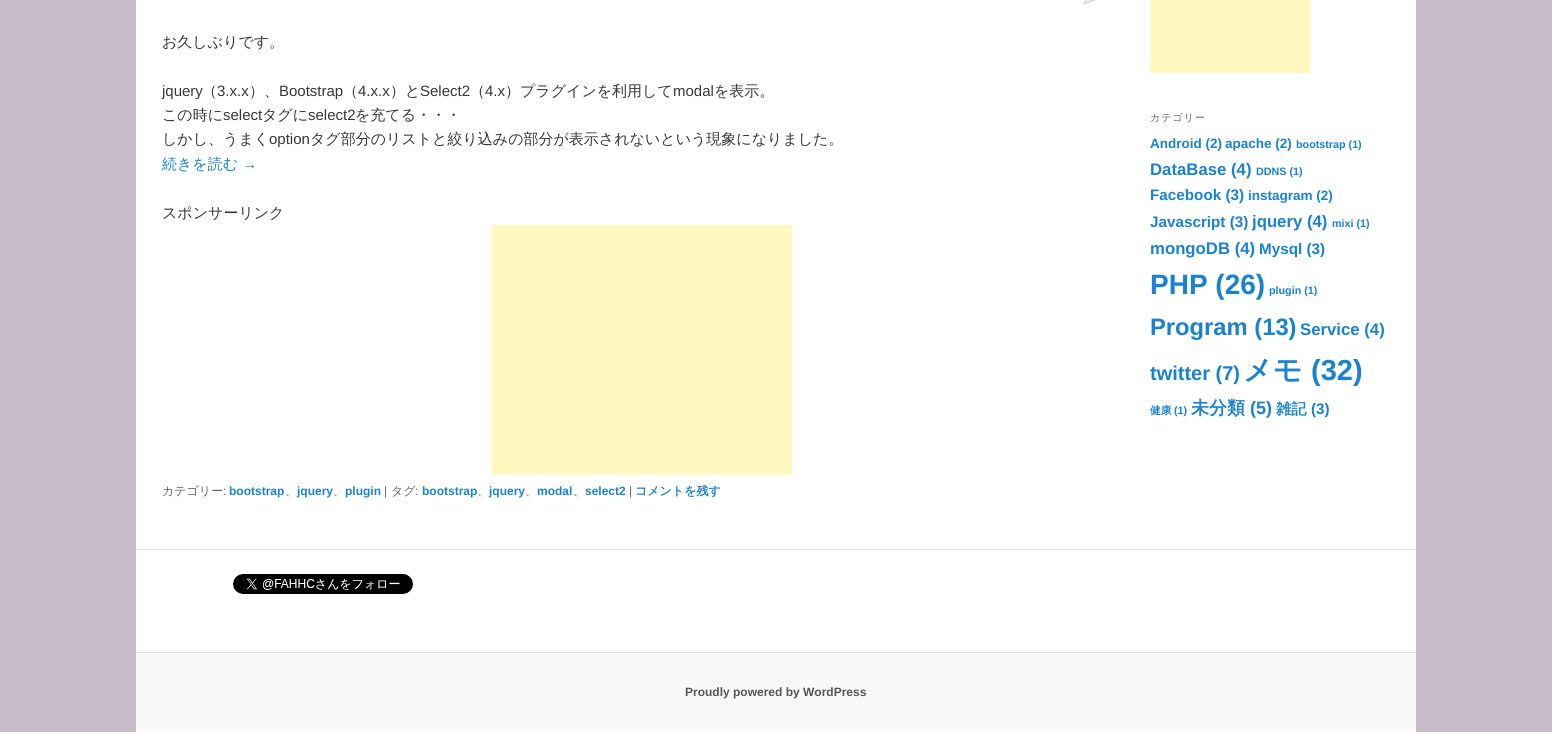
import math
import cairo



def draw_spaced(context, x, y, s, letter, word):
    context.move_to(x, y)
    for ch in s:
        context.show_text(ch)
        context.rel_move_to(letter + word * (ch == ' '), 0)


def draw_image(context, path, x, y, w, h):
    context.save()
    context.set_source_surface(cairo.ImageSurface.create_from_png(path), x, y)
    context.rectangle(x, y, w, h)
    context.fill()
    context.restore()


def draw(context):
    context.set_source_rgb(199 / 255, 188 / 255, 199 / 255)
    context.paint()
    context.set_source_rgb(1, 1, 1)
    context.rectangle(136, 0, 1280, 652)
    context.fill()
    context.set_source_rgb(238 / 255, 238 / 255, 238 / 255)
    context.rectangle(1079, 0, 17, 4)
    context.fill()
    draw_image(context, "images/1.png", 1079, 0, 43, 4)
    context.set_source_rgb(1, 249 / 255, 192 / 255)
    context.rectangle(492, 225, 300, 250)
    context.fill()
    context.rectangle(1150, 0, 160, 73)
    context.fill()
    context.set_source_rgb(221 / 255, 221 / 255, 221 / 255)
    context.rectangle(136, 549, 1280, 1)
    context.fill()
    draw_image(context, "images/2.png", 233, 574, 180, 20)
    context.set_source_rgb(249 / 255, 249 / 255, 249 / 255)
    context.rectangle(136, 653, 1280, 79)
    context.fill()
    context.set_source_rgb(221 / 255, 221 / 255, 221 / 255)
    context.rectangle(136, 652, 1280, 1)
    context.fill()
    context.select_font_face("WenQuanYi Zen Hei Medium")
    context.set_font_size(15)
    context.set_source_rgb(55 / 255, 55 / 255, 55 / 255)
    context.move_to(162, 47)
    context.show_text("お久しぶりです。")
    context.select_font_face("Liberation Sans")
    context.move_to(162, 96)
    context.show_text("jquery")
    context.select_font_face("WenQuanYi Zen Hei Medium")
    context.move_to(202, 96)
    context.show_text("（")
    context.select_font_face("Liberation Sans")
    context.move_to(217, 96)
    context.show_text("3.x.x")
    context.select_font_face("WenQuanYi Zen Hei Medium")
    context.move_to(249, 96)
    context.show_text("）、")
    context.select_font_face("Liberation Sans")
    context.move_to(279, 96)
    context.show_text("Bootstrap")
    context.select_font_face("WenQuanYi Zen Hei Medium")
    context.move_to(343, 96)
    context.show_text("（")
    context.select_font_face("Liberation Sans")
    context.move_to(358, 96)
    context.show_text("4.x.x")
    context.select_font_face("WenQuanYi Zen Hei Medium")
    context.move_to(390, 96)
    context.show_text("）と")
    context.select_font_face("Liberation Sans")
    context.move_to(420, 96)
    context.show_text("Select2")
    context.select_font_face("WenQuanYi Zen Hei Medium")
    context.move_to(470, 96)
    context.show_text("（")
    context.select_font_face("Liberation Sans")
    context.move_to(485, 96)
    context.show_text("4.x")
    context.select_font_face("WenQuanYi Zen Hei Medium")
    context.move_to(505, 96)
    context.show_text("）プラグインを利用して")
    context.select_font_face("Liberation Sans")
    context.move_to(673, 96)
    context.show_text("modal")
    context.select_font_face("WenQuanYi Zen Hei Medium")
    context.move_to(714, 96)
    context.show_text("を表示。")
    context.move_to(162, 120)
    context.show_text("この時に")
    context.select_font_face("Liberation Sans")
    context.move_to(223, 120)
    context.show_text("select")
    context.select_font_face("WenQuanYi Zen Hei Medium")
    context.move_to(262, 120)
    context.show_text("タグに")
    context.select_font_face("Liberation Sans")
    context.move_to(308, 120)
    context.show_text("select2")
    context.select_font_face("WenQuanYi Zen Hei Medium")
    context.move_to(355, 120)
    context.show_text("を充てる・・・")
    context.move_to(162, 144)
    context.show_text("しかし、うまく")
    context.select_font_face("Liberation Sans")
    context.move_to(269, 144)
    context.show_text("option")
    context.select_font_face("WenQuanYi Zen Hei Medium")
    context.move_to(310, 144)
    context.show_text("タグ部分のリストと絞り込みの部分が表示されないという現象になりました。")
    context.set_source_rgb(25 / 255, 130 / 255, 209 / 255)
    context.move_to(162, 169)
    context.show_text("続きを読む")
    context.select_font_face("Liberation Sans")
    context.move_to(242, 169)
    context.show_text("→")
    context.select_font_face("WenQuanYi Zen Hei Medium")
    context.set_source_rgb(55 / 255, 55 / 255, 55 / 255)
    context.move_to(162, 218)
    context.show_text("スポンサーリンク")
    context.set_font_size(12)
    context.set_source_rgb(102 / 255, 102 / 255, 102 / 255)
    context.move_to(162, 495)
    context.show_text("カテゴリー")
    context.select_font_face("Liberation Sans")
    context.move_to(223, 495)
    context.show_text(":")
    context.select_font_face("Liberation Sans", cairo.FontSlant.NORMAL, cairo.FontWeight.BOLD)
    context.set_source_rgb(25 / 255, 130 / 255, 209 / 255)
    context.move_to(229, 495)
    context.show_text("bootstrap")
    context.move_to(297, 495)
    context.show_text("jquery")
    context.move_to(345, 495)
    context.show_text("plugin")
    context.select_font_face("Liberation Sans")
    context.set_source_rgb(102 / 255, 102 / 255, 102 / 255)
    context.move_to(384, 495)
    context.show_text("|")
    context.select_font_face("WenQuanYi Zen Hei Medium")
    context.move_to(391, 495)
    context.show_text("タグ")
    context.select_font_face("Liberation Sans")
    context.move_to(415, 495)
    context.show_text(":")
    context.select_font_face("Liberation Sans", cairo.FontSlant.NORMAL, cairo.FontWeight.BOLD)
    context.set_source_rgb(25 / 255, 130 / 255, 209 / 255)
    context.move_to(422, 495)
    context.show_text("bootstrap")
    context.move_to(489, 495)
    context.show_text("jquery")
    context.move_to(537, 495)
    context.show_text("modal")
    context.move_to(585, 495)
    context.show_text("select2")
    context.select_font_face("Liberation Sans")
    context.set_source_rgb(102 / 255, 102 / 255, 102 / 255)
    context.move_to(629, 495)
    context.show_text("|")
    context.select_font_face("WenQuanYi Zen Hei", cairo.FontSlant.NORMAL, cairo.FontWeight.BOLD)
    context.set_source_rgb(25 / 255, 130 / 255, 209 / 255)
    context.move_to(635, 495)
    context.show_text("コメントを残す")
    context.select_font_face("WenQuanYi Zen Hei Medium")
    context.set_source_rgb(102 / 255, 102 / 255, 102 / 255)
    context.move_to(285, 495)
    context.show_text("、")
    context.move_to(333, 495)
    context.show_text("、")
    context.move_to(477, 495)
    context.show_text("、")
    context.move_to(525, 495)
    context.show_text("、")
    context.move_to(573, 495)
    context.show_text("、")
    context.set_font_size(10)
    draw_spaced(context, 1150, 121, "カテゴリー", 1, 0)
    context.select_font_face("Liberation Sans", cairo.FontSlant.NORMAL, cairo.FontWeight.BOLD)
    context.set_font_size(13.5)
    context.set_source_rgb(25 / 255, 130 / 255, 209 / 255)
    context.move_to(1150, 148)
    context.show_text("Android (2)")
    context.move_to(1225, 148)
    context.show_text("apache (2)")
    context.set_font_size(10.75)
    context.move_to(1296, 148)
    context.show_text("bootstrap (1)")
    context.set_font_size(16.75)
    context.move_to(1150, 175)
    context.show_text("DataBase (4)")
    context.set_font_size(10.75)
    context.move_to(1256, 175)
    context.show_text("DDNS (1)")
    context.set_font_size(15.25)
    context.move_to(1150, 200)
    context.show_text("Facebook (3)")
    context.set_font_size(13.5)
    context.move_to(1248, 200)
    context.show_text("instagram (2)")
    context.set_font_size(15.25)
    context.move_to(1150, 227)
    context.show_text("Javascript (3)")
    context.set_font_size(16.75)
    context.move_to(1252, 227)
    context.show_text("jquery (4)")
    context.set_font_size(10.75)
    context.move_to(1332, 227)
    context.show_text("mixi (1)")
    context.set_font_size(16.75)
    context.move_to(1150, 254)
    context.show_text("mongoDB (4)")
    context.set_font_size(15.25)
    context.move_to(1259, 254)
    context.show_text("Mysql (3)")
    context.set_font_size(28)
    context.move_to(1150, 294)
    context.show_text("PHP (26)")
    context.set_font_size(10.75)
    context.move_to(1269, 294)
    context.show_text("plugin (1)")
    context.set_font_size(23.75)
    context.move_to(1150, 335)
    context.show_text("Program (13)")
    context.set_font_size(16.75)
    context.move_to(1300, 335)
    context.show_text("Service (4)")
    context.set_font_size(20)
    context.move_to(1150, 380)
    context.show_text("twitter (7)")
    context.select_font_face("WenQuanYi Zen Hei", cairo.FontSlant.NORMAL, cairo.FontWeight.BOLD)
    context.set_font_size(29)
    context.move_to(1243, 380)
    context.show_text("メモ")
    context.select_font_face("Liberation Sans", cairo.FontSlant.NORMAL, cairo.FontWeight.BOLD)
    context.move_to(1311, 380)
    context.show_text("(32)")
    context.select_font_face("WenQuanYi Zen Hei", cairo.FontSlant.NORMAL, cairo.FontWeight.BOLD)
    context.set_font_size(10.75)
    context.move_to(1150, 414)
    context.show_text("健康")
    context.select_font_face("Liberation Sans", cairo.FontSlant.NORMAL, cairo.FontWeight.BOLD)
    context.move_to(1174, 414)
    context.show_text("(1)")
    context.select_font_face("WenQuanYi Zen Hei", cairo.FontSlant.NORMAL, cairo.FontWeight.BOLD)
    context.set_font_size(18)
    context.move_to(1191, 414)
    context.show_text("未分類")
    context.select_font_face("Liberation Sans", cairo.FontSlant.NORMAL, cairo.FontWeight.BOLD)
    context.move_to(1250, 414)
    context.show_text("(5)")
    context.select_font_face("WenQuanYi Zen Hei", cairo.FontSlant.NORMAL, cairo.FontWeight.BOLD)
    context.set_font_size(15.25)
    context.move_to(1276, 414)
    context.show_text("雑記")
    context.select_font_face("Liberation Sans", cairo.FontSlant.NORMAL, cairo.FontWeight.BOLD)
    context.move_to(1311, 414)
    context.show_text("(3)")
    context.set_font_size(12)
    context.set_source_rgb(85 / 255, 85 / 255, 85 / 255)
    context.move_to(685, 696)
    context.show_text("Proudly powered by WordPress")


surface = cairo.ImageSurface(cairo.Format.RGB24, 1552, 732)
context = cairo.Context(surface)
options = cairo.FontOptions()
options.set_hint_metrics(cairo.HintMetrics.OFF)
options.set_hint_style(cairo.HintStyle.NONE)
context.set_font_options(options)
context.set_miter_limit(4)
draw(context)
surface.write_to_png("out.png")
